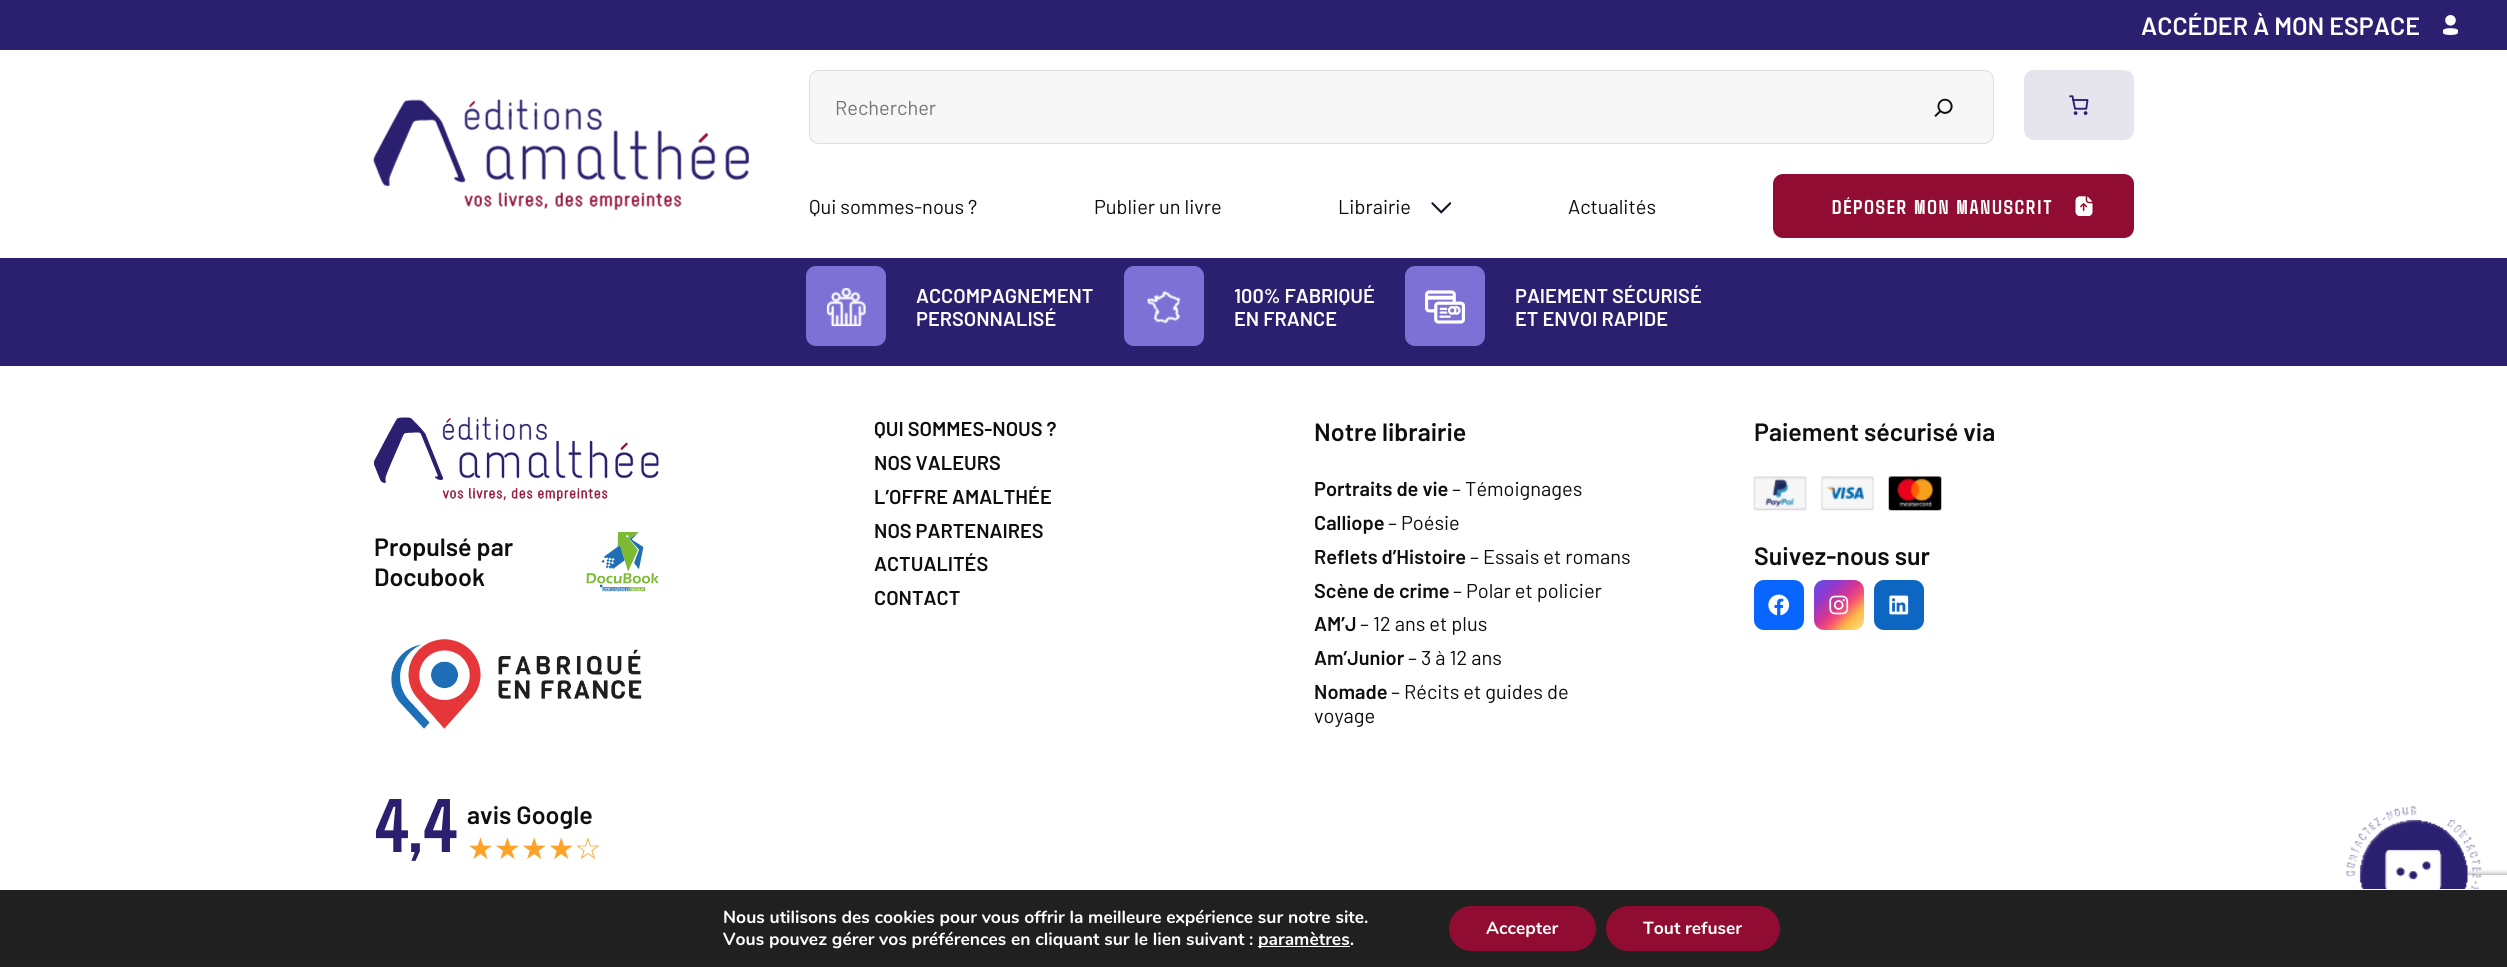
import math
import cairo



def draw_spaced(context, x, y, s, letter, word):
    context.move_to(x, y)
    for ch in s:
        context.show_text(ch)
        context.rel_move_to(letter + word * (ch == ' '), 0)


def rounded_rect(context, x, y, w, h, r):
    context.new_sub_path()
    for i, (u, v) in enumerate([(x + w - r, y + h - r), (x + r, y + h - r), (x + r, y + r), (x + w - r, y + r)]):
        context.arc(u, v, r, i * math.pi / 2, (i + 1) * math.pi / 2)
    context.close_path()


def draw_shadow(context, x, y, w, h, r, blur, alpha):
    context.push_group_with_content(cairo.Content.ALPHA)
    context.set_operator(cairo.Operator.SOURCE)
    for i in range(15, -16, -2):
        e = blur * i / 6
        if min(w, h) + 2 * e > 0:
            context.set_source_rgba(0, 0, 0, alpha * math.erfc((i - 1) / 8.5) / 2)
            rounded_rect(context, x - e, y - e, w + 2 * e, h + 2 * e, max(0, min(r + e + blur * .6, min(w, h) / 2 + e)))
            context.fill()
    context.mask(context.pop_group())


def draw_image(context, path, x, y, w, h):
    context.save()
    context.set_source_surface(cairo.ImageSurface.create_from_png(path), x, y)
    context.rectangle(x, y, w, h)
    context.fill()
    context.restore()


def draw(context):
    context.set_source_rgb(1, 1, 1)
    context.paint()
    context.set_source_rgb(42 / 255, 32 / 255, 111 / 255)
    context.rectangle(0, 0, 2507, 50)
    context.fill()
    draw_image(context, "images/1.png", 2443, 15, 15, 20)
    draw_image(context, "images/2.png", 373, 99, 376, 111)
    context.set_source_rgb(247 / 255, 247 / 255, 247 / 255)
    rounded_rect(context, 809.5, 70.5, 1184, 73, 9.5)
    context.fill_preserve()
    context.set_source_rgb(221 / 255, 221 / 255, 221 / 255)
    context.set_line_width(1)
    context.stroke()
    draw_image(context, "images/3.png", 1934, 98, 19, 19)
    context.set_source_rgb(230 / 255, 229 / 255, 237 / 255)
    rounded_rect(context, 2024, 70, 110, 70, 10)
    context.fill()
    draw_image(context, "images/4.png", 2069, 95, 20, 20)
    draw_image(context, "images/5.png", 1431, 202, 20, 12)
    context.set_source_rgb(145 / 255, 12 / 255, 50 / 255)
    rounded_rect(context, 1773, 174, 361, 64, 10)
    context.fill()
    draw_image(context, "images/6.png", 2075, 196, 18, 20)
    context.set_source_rgb(42 / 255, 32 / 255, 111 / 255)
    context.rectangle(0, 258, 2507, 108)
    context.fill()
    context.set_source_rgb(125 / 255, 113 / 255, 214 / 255)
    rounded_rect(context, 806, 266, 80, 80, 10)
    context.fill()
    draw_image(context, "images/7.png", 826, 288, 40, 39)
    rounded_rect(context, 1124, 266, 80, 80, 10)
    context.fill()
    draw_image(context, "images/8.png", 1147, 290, 34, 34)
    rounded_rect(context, 1405, 266, 80, 80, 10)
    context.fill()
    draw_image(context, "images/9.png", 1425, 290, 40, 34)
    draw_image(context, "images/10.png", 1753, 476, 189, 35)
    context.set_source_rgb(8 / 255, 102 / 255, 1)
    rounded_rect(context, 1754, 580, 50, 50, 10)
    context.fill()
    draw_image(context, "images/11.png", 1768, 594, 22, 22)
    gradient = cairo.LinearGradient(1864, 630, 1813, 580)
    gradient.add_color_stop_rgba(0.01, 251 / 255, 225 / 255, 138 / 255, 1)
    gradient.add_color_stop_rgba(0.22, 252 / 255, 187 / 255, 69 / 255, 1)
    gradient.add_color_stop_rgba(0.39, 247 / 255, 82 / 255, 116 / 255, 1)
    gradient.add_color_stop_rgba(0.52, 213 / 255, 54 / 255, 146 / 255, 1)
    gradient.add_color_stop_rgba(0.74, 143 / 255, 57 / 255, 206 / 255, 1)
    gradient.add_color_stop_rgba(1, 91 / 255, 79 / 255, 233 / 255, 1)
    context.set_source(gradient)
    rounded_rect(context, 1814, 580, 50, 50, 10)
    context.fill()
    draw_image(context, "images/12.png", 1829, 595, 20, 20)
    context.set_source_rgb(13 / 255, 102 / 255, 194 / 255)
    rounded_rect(context, 1874, 580, 50, 50, 10)
    context.fill()
    draw_image(context, "images/13.png", 1889, 595, 20, 20)
    draw_image(context, "images/14.png", 374, 417, 285, 84)
    draw_image(context, "images/15.png", 586, 532, 73, 60)
    draw_image(context, "images/16.png", 390, 639, 252, 90)
    context.save()
    context.rectangle(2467, 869, 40, 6)
    context.clip()
    context.set_source_rgb(128 / 255, 128 / 255, 128 / 255)
    draw_shadow(context, 2420, 875, 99, 75, 2.5, 3, 1)
    context.restore()
    draw_image(context, "images/17.png", 2346, 806, 136, 83)
    context.set_source_rgb(32 / 255, 32 / 255, 32 / 255)
    context.rectangle(0, 890, 2507, 77)
    context.fill()
    context.set_source_rgb(1, 1, 1)
    context.rectangle(2414, 889, 6, 1)
    context.fill()
    context.rectangle(1258, 946, 92, 1)
    context.fill()
    context.set_source_rgb(145 / 255, 12 / 255, 50 / 255)
    rounded_rect(context, 1449, 906, 147, 45, 22.5)
    context.fill()
    rounded_rect(context, 1606, 906, 174, 45, 22.5)
    context.fill()
    context.select_font_face("Barlow SemiBold")
    context.set_font_size(25)
    context.set_source_rgb(254 / 255, 254 / 255, 254 / 255)
    context.move_to(2141, 35)
    context.show_text("ACCÉDER À MON ESPACE")
    context.select_font_face("Barlow")
    context.set_font_size(20)
    context.set_source_rgb(117 / 255, 117 / 255, 117 / 255)
    context.move_to(835, 115)
    context.show_text("Rechercher")
    context.set_source_rgb(14 / 255, 14 / 255, 14 / 255)
    context.move_to(809, 214)
    context.show_text("Qui sommes-nous ?")
    context.move_to(1094, 214)
    context.show_text("Publier un livre")
    context.move_to(1338, 214)
    context.show_text("Librairie")
    context.move_to(1568, 214)
    context.show_text("Actualités")
    context.select_font_face("Agdasima", cairo.FontSlant.NORMAL, cairo.FontWeight.BOLD)
    context.set_source_rgb(254 / 255, 254 / 255, 254 / 255)
    draw_spaced(context, 1832, 214, "DÉPOSER MON MANUSCRIT", 2, 0)
    context.select_font_face("Barlow SemiBold")
    context.move_to(916, 303)
    context.show_text("ACCOMPAGNEMENT")
    context.move_to(916, 326)
    context.show_text("PERSONNALISÉ")
    context.move_to(1234, 303)
    context.show_text("100% FABRIQUÉ")
    context.move_to(1234, 326)
    context.show_text("EN FRANCE")
    context.move_to(1515, 303)
    context.show_text("PAIEMENT SÉCURISÉ")
    context.move_to(1515, 326)
    context.show_text("ET ENVOI RAPIDE")
    context.set_source_rgb(14 / 255, 14 / 255, 14 / 255)
    context.move_to(874, 436)
    context.show_text("QUI SOMMES-NOUS ?")
    context.move_to(874, 470)
    context.show_text("NOS VALEURS")
    context.move_to(874, 504)
    context.show_text("L’OFFRE AMALTHÉE")
    context.move_to(874, 538)
    context.show_text("NOS PARTENAIRES")
    context.move_to(874, 571)
    context.show_text("ACTUALITÉS")
    context.move_to(874, 605)
    context.show_text("CONTACT")
    context.set_font_size(25)
    context.move_to(1314, 441)
    context.show_text("Notre librairie")
    context.set_font_size(20)
    context.move_to(1314, 496)
    context.show_text("Portraits de vie")
    context.select_font_face("Barlow")
    context.move_to(1452, 496)
    context.show_text("– Témoignages")
    context.select_font_face("Barlow SemiBold")
    context.move_to(1314, 530)
    context.show_text("Calliope")
    context.select_font_face("Barlow")
    context.move_to(1388, 530)
    context.show_text("– Poésie")
    context.select_font_face("Barlow SemiBold")
    context.move_to(1314, 564)
    context.show_text("Reflets d’Histoire")
    context.select_font_face("Barlow")
    context.move_to(1470, 564)
    context.show_text("– Essais et romans")
    context.select_font_face("Barlow SemiBold")
    context.move_to(1314, 598)
    context.show_text("Scène de crime")
    context.select_font_face("Barlow")
    context.move_to(1453, 598)
    context.show_text("– Polar et policier")
    context.select_font_face("Barlow SemiBold")
    context.move_to(1314, 631)
    context.show_text("AM’J")
    context.select_font_face("Barlow")
    context.move_to(1360, 631)
    context.show_text("– 12 ans et plus")
    context.select_font_face("Barlow SemiBold")
    context.move_to(1314, 665)
    context.show_text("Am’Junior")
    context.select_font_face("Barlow")
    context.move_to(1408, 665)
    context.show_text("– 3 à 12 ans")
    context.select_font_face("Barlow SemiBold")
    context.move_to(1314, 699)
    context.show_text("Nomade")
    context.select_font_face("Barlow")
    context.move_to(1391, 699)
    context.show_text("– Récits et guides de")
    context.move_to(1314, 723)
    context.show_text("voyage")
    context.select_font_face("Barlow SemiBold")
    context.set_font_size(25)
    context.move_to(1754, 441)
    context.show_text("Paiement sécurisé via")
    context.move_to(1754, 565)
    context.show_text("Suivez-nous sur")
    context.move_to(374, 556)
    context.show_text("Propulsé par")
    context.move_to(374, 586)
    context.show_text("Docubook")
    context.select_font_face("Agdasima", cairo.FontSlant.NORMAL, cairo.FontWeight.BOLD)
    context.set_font_size(76)
    context.set_source_rgb(42 / 255, 32 / 255, 111 / 255)
    context.move_to(374, 852)
    context.show_text("4,4")
    context.select_font_face("Barlow SemiBold")
    context.set_font_size(25)
    context.set_source_rgb(14 / 255, 14 / 255, 14 / 255)
    context.move_to(467, 824)
    context.show_text("avis Google")
    context.select_font_face("DejaVu Sans")
    context.set_font_size(30)
    context.set_source_rgb(1, 163 / 255, 40 / 255)
    context.move_to(467, 859)
    context.show_text("★★★★☆")
    context.select_font_face("Nunito", cairo.FontSlant.NORMAL, cairo.FontWeight.BOLD)
    context.set_font_size(17.5)
    context.set_source_rgb(254 / 255, 254 / 255, 254 / 255)
    context.move_to(723, 923)
    context.show_text("Nous utilisons des cookies pour vous offrir la meilleure expérience sur notre site.")
    context.move_to(723, 945)
    context.show_text("Vous pouvez gérer vos préférences en cliquant sur le lien suivant :")
    context.move_to(1258, 945)
    context.show_text("paramètres.")
    context.move_to(1486, 934)
    context.show_text("Accepter")
    context.move_to(1643, 934)
    context.show_text("Tout refuser")


surface = cairo.ImageSurface(cairo.Format.RGB24, 2507, 967)
context = cairo.Context(surface)
options = cairo.FontOptions()
options.set_hint_metrics(cairo.HintMetrics.OFF)
options.set_hint_style(cairo.HintStyle.NONE)
context.set_font_options(options)
context.set_miter_limit(4)
draw(context)
surface.write_to_png("out.png")
